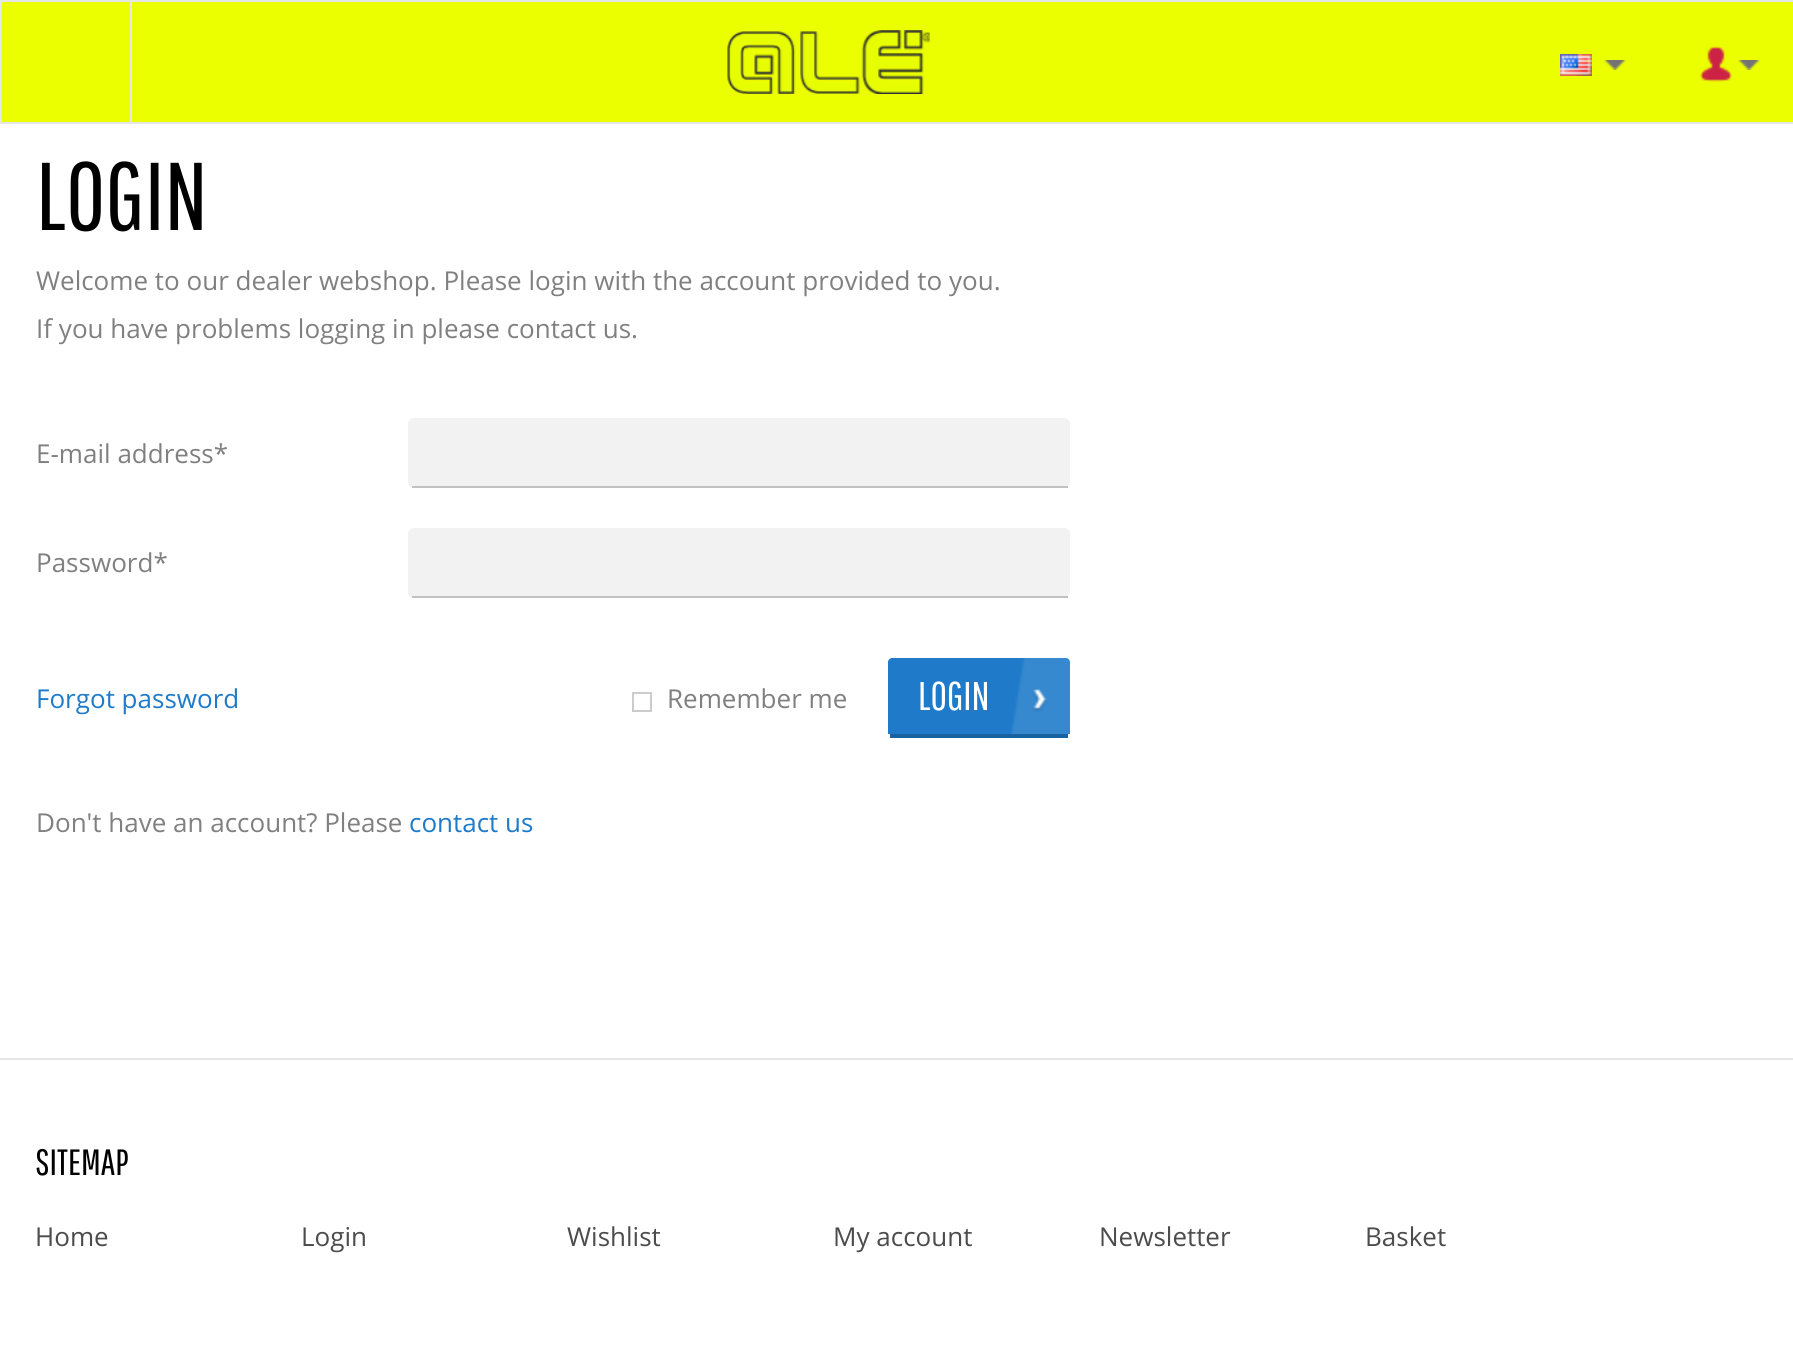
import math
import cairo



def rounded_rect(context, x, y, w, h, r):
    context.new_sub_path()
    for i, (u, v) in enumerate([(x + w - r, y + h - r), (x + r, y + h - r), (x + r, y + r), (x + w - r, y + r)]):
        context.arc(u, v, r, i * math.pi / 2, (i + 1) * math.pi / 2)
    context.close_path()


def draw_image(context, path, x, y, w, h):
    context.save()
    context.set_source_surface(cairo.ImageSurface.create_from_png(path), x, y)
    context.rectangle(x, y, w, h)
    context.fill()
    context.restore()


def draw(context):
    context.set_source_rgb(1, 1, 1)
    context.paint()
    context.set_source_rgb(235 / 255, 1, 0)
    context.rectangle(2, 2, 1791, 120)
    context.fill()
    context.set_source_rgb(230 / 255, 230 / 255, 230 / 255)
    context.rectangle(0, 0, 1793, 2)
    context.fill()
    context.rectangle(0, 122, 1793, 2)
    context.fill()
    context.rectangle(130, 2, 2, 120)
    context.fill()
    context.rectangle(0, 2, 2, 120)
    context.fill()
    draw_image(context, "images/1.png", 727, 30, 203, 64)
    draw_image(context, "images/2.png", 1560, 54, 32, 22)
    draw_image(context, "images/3.png", 1604, 60, 22, 10)
    draw_image(context, "images/4.png", 1700, 46, 32, 36)
    draw_image(context, "images/3.png", 1738, 60, 22, 10)
    context.set_source_rgb(242 / 255, 242 / 255, 242 / 255)
    rounded_rect(context, 408, 418, 662, 70, 6)
    context.fill()
    context.set_source_rgb(194 / 255, 194 / 255, 194 / 255)
    context.rectangle(412, 486, 656, 2)
    context.fill()
    context.set_source_rgb(242 / 255, 242 / 255, 242 / 255)
    rounded_rect(context, 408, 528, 662, 70, 6)
    context.fill()
    context.set_source_rgb(194 / 255, 194 / 255, 194 / 255)
    context.rectangle(412, 596, 656, 2)
    context.fill()
    context.rectangle(633, 693, 18, 18)
    context.set_source_rgb(204 / 255, 204 / 255, 204 / 255)
    context.stroke()
    context.set_source_rgb(31 / 255, 123 / 255, 201 / 255)
    context.new_path()
    context.move_to(892, 658)
    context.line_to(1066, 658)
    context.curve_to(1068, 658, 1070, 660, 1070, 662)
    context.line_to(1070, 734)
    context.line_to(888, 734)
    context.line_to(888, 662)
    context.curve_to(888, 660, 890, 658, 892, 658)
    context.close_path()
    context.fill()
    context.set_source_rgb(25 / 255, 98 / 255, 161 / 255)
    context.rectangle(890, 734, 178, 4)
    context.fill()
    draw_image(context, "images/5.png", 1011, 658, 59, 76)
    context.set_source_rgb(230 / 255, 230 / 255, 230 / 255)
    context.rectangle(0, 1058, 1793, 2)
    context.fill()
    context.select_font_face("Pathway Gothic One")
    context.set_font_size(96)
    context.set_source_rgb(0, 0, 0)
    context.move_to(36, 230)
    context.show_text("LOGIN")
    context.select_font_face("Open Sans")
    context.set_font_size(26)
    context.set_source_rgb(128 / 255, 128 / 255, 128 / 255)
    context.move_to(36, 290)
    context.show_text("Welcome to our dealer webshop. Please login with the account provided to you.")
    context.move_to(36, 338)
    context.show_text("If you have problems logging in please contact us.")
    context.move_to(36, 463)
    context.show_text("E-mail address*")
    context.move_to(36, 572)
    context.show_text("Password*")
    context.set_source_rgb(31 / 255, 123 / 255, 201 / 255)
    context.move_to(36, 708)
    context.show_text("Forgot password")
    context.set_source_rgb(128 / 255, 128 / 255, 128 / 255)
    context.move_to(667, 708)
    context.show_text("Remember me")
    context.select_font_face("Pathway Gothic One")
    context.set_font_size(40)
    context.set_source_rgb(1, 1, 1)
    context.move_to(918, 710)
    context.show_text("LOGIN")
    context.select_font_face("Open Sans")
    context.set_font_size(26)
    context.set_source_rgb(128 / 255, 128 / 255, 128 / 255)
    context.move_to(36, 832)
    context.show_text("Don't have an account? Please")
    context.set_source_rgb(31 / 255, 123 / 255, 201 / 255)
    context.move_to(409, 832)
    context.show_text("contact us")
    context.select_font_face("Pathway Gothic One")
    context.set_font_size(36.5)
    context.set_source_rgb(0, 0, 0)
    context.move_to(35, 1175)
    context.show_text("SITEMAP")
    context.select_font_face("Open Sans")
    context.set_font_size(26)
    context.set_source_rgb(76 / 255, 76 / 255, 76 / 255)
    context.move_to(35, 1246)
    context.show_text("Home")
    context.move_to(301, 1246)
    context.show_text("Login")
    context.move_to(567, 1246)
    context.show_text("Wishlist")
    context.move_to(833, 1246)
    context.show_text("My account")
    context.move_to(1099, 1246)
    context.show_text("Newsletter")
    context.move_to(1365, 1246)
    context.show_text("Basket")


surface = cairo.ImageSurface(cairo.Format.RGB24, 1793, 1353)
context = cairo.Context(surface)
options = cairo.FontOptions()
options.set_hint_metrics(cairo.HintMetrics.OFF)
options.set_hint_style(cairo.HintStyle.NONE)
context.set_font_options(options)
context.set_miter_limit(4)
draw(context)
surface.write_to_png("out.png")
